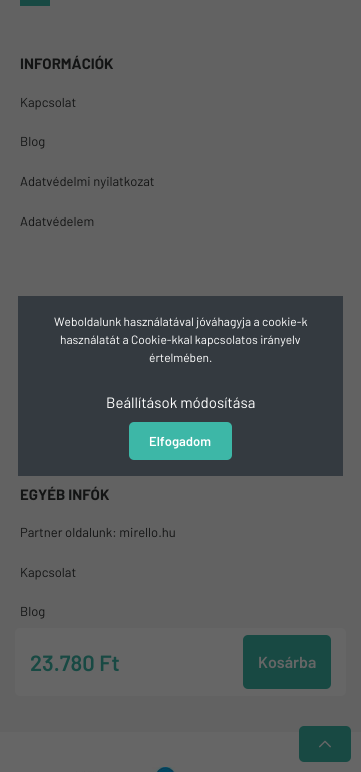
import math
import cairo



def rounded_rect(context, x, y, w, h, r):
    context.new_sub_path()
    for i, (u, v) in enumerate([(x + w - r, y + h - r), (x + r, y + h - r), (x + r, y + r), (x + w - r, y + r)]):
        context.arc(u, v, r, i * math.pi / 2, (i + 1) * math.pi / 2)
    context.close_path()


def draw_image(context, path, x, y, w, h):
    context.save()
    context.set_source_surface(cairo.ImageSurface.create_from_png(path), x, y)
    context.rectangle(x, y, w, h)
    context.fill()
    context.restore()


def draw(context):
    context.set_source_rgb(98 / 255, 98 / 255, 98 / 255)
    context.paint()
    context.set_source_rgb(24 / 255, 73 / 255, 67 / 255)
    context.rectangle(20, 0, 30, 6)
    context.fill()
    context.set_source_rgb(102 / 255, 102 / 255, 102 / 255)
    context.rectangle(0, 732, 361, 40)
    context.fill()
    draw_image(context, "images/1.png", 76, 771, 23, 1)
    draw_image(context, "images/2.png", 152, 767, 24, 5)
    rounded_rect(context, 15, 628, 331, 68, 5)
    context.fill()
    context.set_source_rgb(24 / 255, 73 / 255, 67 / 255)
    rounded_rect(context, 243, 635, 88, 54, 5)
    context.fill()
    rounded_rect(context, 299, 726, 52, 36, 5)
    context.fill()
    draw_image(context, "images/3.png", 319, 740, 12, 8)
    context.set_source_rgb(52 / 255, 58 / 255, 64 / 255)
    context.rectangle(18, 296, 325, 180)
    context.fill()
    context.set_source_rgb(61 / 255, 183 / 255, 167 / 255)
    rounded_rect(context, 129, 422, 103, 38, 5)
    context.fill()
    context.select_font_face("Barlow", cairo.FontSlant.NORMAL, cairo.FontWeight.BOLD)
    context.set_font_size(15)
    context.set_source_rgb(19 / 255, 20 / 255, 20 / 255)
    context.move_to(20, 69)
    context.show_text("INFORMÁCIÓK")
    context.select_font_face("Barlow")
    context.set_font_size(13)
    context.move_to(20, 107)
    context.show_text("Kapcsolat")
    context.move_to(20, 146)
    context.show_text("Blog")
    context.move_to(20, 186)
    context.show_text("Adatvédelmi nyilatkozat")
    context.move_to(20, 226)
    context.show_text("Adatvédelem")
    context.select_font_face("Barlow", cairo.FontSlant.NORMAL, cairo.FontWeight.BOLD)
    context.set_font_size(15)
    context.move_to(20, 500)
    context.show_text("EGYÉB INFÓK")
    context.select_font_face("Barlow")
    context.set_font_size(13)
    context.move_to(20, 537)
    context.show_text("Partner oldalunk: mirello.hu")
    context.move_to(20, 577)
    context.show_text("Kapcsolat")
    context.move_to(20, 616)
    context.show_text("Blog")
    context.select_font_face("Barlow SemiBold")
    context.set_font_size(22)
    context.set_source_rgb(24 / 255, 73 / 255, 67 / 255)
    context.move_to(30, 671)
    context.show_text("23.780 Ft")
    context.set_font_size(16)
    context.set_source_rgb(102 / 255, 102 / 255, 102 / 255)
    context.move_to(258, 668)
    context.show_text("Kosárba")
    context.select_font_face("Barlow")
    context.set_font_size(12)
    context.set_source_rgb(1, 1, 1)
    context.move_to(54, 326)
    context.show_text("Weboldalunk használatával jóváhagyja a cookie-k")
    context.move_to(60, 344)
    context.show_text("használatát a Cookie-kkal kapcsolatos irányelv")
    context.move_to(149, 362)
    context.show_text("értelmében.")
    context.set_font_size(15)
    context.move_to(106, 408)
    context.show_text("Beállítások módosítása")
    context.select_font_face("Barlow SemiBold")
    context.set_font_size(13)
    context.move_to(149, 446)
    context.show_text("Elfogadom")


surface = cairo.ImageSurface(cairo.Format.RGB24, 361, 772)
context = cairo.Context(surface)
options = cairo.FontOptions()
options.set_hint_metrics(cairo.HintMetrics.OFF)
options.set_hint_style(cairo.HintStyle.NONE)
context.set_font_options(options)
context.set_miter_limit(4)
draw(context)
surface.write_to_png("out.png")
